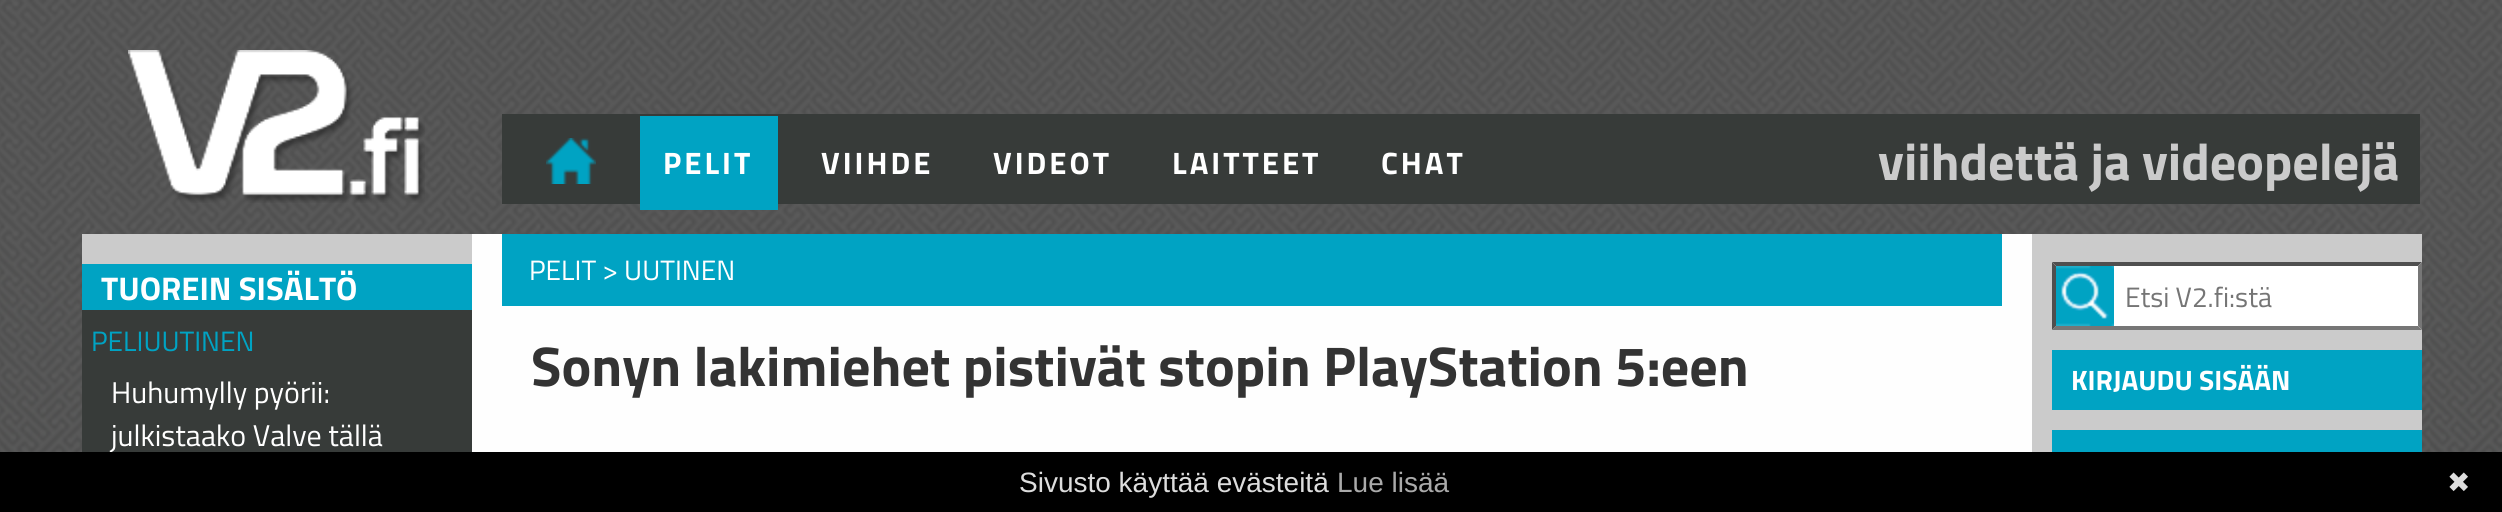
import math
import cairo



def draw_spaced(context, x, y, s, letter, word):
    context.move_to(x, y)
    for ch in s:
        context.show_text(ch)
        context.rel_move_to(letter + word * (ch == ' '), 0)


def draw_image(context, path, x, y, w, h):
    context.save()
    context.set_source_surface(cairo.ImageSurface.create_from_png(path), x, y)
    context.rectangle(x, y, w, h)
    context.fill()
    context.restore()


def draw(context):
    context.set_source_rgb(1, 1, 1)
    context.paint()
    draw_image(context, "images/1.png", 0, 0, 2502, 452)
    draw_image(context, "images/2.png", 128, 50, 297, 153)
    context.set_source_rgb(55 / 255, 59 / 255, 57 / 255)
    context.rectangle(502, 114, 1918, 90)
    context.fill()
    draw_image(context, "images/3.png", 546, 138, 50, 46)
    context.set_source_rgb(0, 163 / 255, 195 / 255)
    context.rectangle(640, 116, 138, 94)
    context.fill()
    context.set_source_rgb(203 / 255, 203 / 255, 203 / 255)
    context.rectangle(82, 234, 390, 30)
    context.fill()
    context.set_source_rgb(55 / 255, 59 / 255, 57 / 255)
    context.rectangle(82, 310, 390, 142)
    context.fill()
    context.set_source_rgb(0, 163 / 255, 195 / 255)
    context.rectangle(82, 264, 390, 46)
    context.fill()
    context.set_source_rgb(254 / 255, 254 / 255, 254 / 255)
    context.rectangle(472, 234, 1560, 218)
    context.fill()
    context.set_source_rgb(0, 163 / 255, 195 / 255)
    context.rectangle(502, 234, 1500, 72)
    context.fill()
    context.set_source_rgb(203 / 255, 203 / 255, 203 / 255)
    context.rectangle(2032, 234, 390, 218)
    context.fill()
    context.set_source_rgb(1, 1, 1)
    context.rectangle(2052, 262, 370, 68)
    context.fill()
    draw_image(context, "images/4.png", 2056, 266, 58, 60)
    context.set_source_rgb(79 / 255, 79 / 255, 79 / 255)
    context.new_path()
    context.move_to(2052, 262)
    context.line_to(2422, 262)
    context.line_to(2418, 266)
    context.line_to(2056, 266)
    context.close_path()
    context.fill()
    context.set_source_rgb(118 / 255, 118 / 255, 118 / 255)
    context.new_path()
    context.move_to(2422, 262)
    context.line_to(2422, 330)
    context.line_to(2418, 326)
    context.line_to(2418, 266)
    context.close_path()
    context.fill()
    context.new_path()
    context.move_to(2422, 330)
    context.line_to(2052, 330)
    context.line_to(2056, 326)
    context.line_to(2418, 326)
    context.close_path()
    context.fill()
    context.set_source_rgb(79 / 255, 79 / 255, 79 / 255)
    context.new_path()
    context.move_to(2052, 330)
    context.line_to(2052, 262)
    context.line_to(2056, 266)
    context.line_to(2056, 326)
    context.close_path()
    context.fill()
    context.set_source_rgb(0, 163 / 255, 195 / 255)
    context.rectangle(2052, 350, 370, 60)
    context.fill()
    context.rectangle(2052, 430, 370, 22)
    context.fill()
    context.select_font_face("Titillium Web", cairo.FontSlant.NORMAL, cairo.FontWeight.BOLD)
    context.set_font_size(31)
    context.set_source_rgb(1, 1, 1)
    draw_spaced(context, 663, 174, "PELIT", 3, 0)
    draw_spaced(context, 821, 174, "VIIHDE", 3, 0)
    draw_spaced(context, 993, 174, "VIDEOT", 3, 0)
    draw_spaced(context, 1172, 174, "LAITTEET", 3, 0)
    draw_spaced(context, 1381, 174, "CHAT", 3, 0)
    context.set_font_size(52)
    context.set_source_rgb(203 / 255, 203 / 255, 203 / 255)
    context.move_to(1878, 180)
    context.show_text("viihdettä ja videopelejä")
    context.set_font_size(32.75)
    context.set_source_rgb(1, 1, 1)
    context.move_to(101, 300)
    context.show_text("TUOREIN SISÄLTÖ")
    context.select_font_face("Titillium Web")
    context.set_font_size(28)
    context.set_source_rgb(0, 163 / 255, 195 / 255)
    context.move_to(91, 351)
    context.show_text("PELIUUTINEN")
    context.set_font_size(30)
    context.set_source_rgb(1, 1, 1)
    context.move_to(111, 403)
    context.show_text("Huhumylly pyörii:")
    context.move_to(111, 446)
    context.show_text("julkistaako Valve tällä")
    context.set_font_size(28)
    context.move_to(529, 280)
    context.show_text("PELIT > UUTINEN")
    context.select_font_face("Titillium Web", cairo.FontSlant.NORMAL, cairo.FontWeight.BOLD)
    context.set_font_size(56)
    context.set_source_rgb(51 / 255, 51 / 255, 51 / 255)
    context.move_to(531, 386)
    context.show_text("Sonyn lakimiehet pistivät stopin PlayStation 5:een")
    context.select_font_face("Titillium Web")
    context.set_font_size(28)
    context.set_source_rgb(117 / 255, 117 / 255, 117 / 255)
    context.move_to(2125, 307)
    context.show_text("Etsi V2.fi:stä")
    context.select_font_face("Titillium Web", cairo.FontSlant.NORMAL, cairo.FontWeight.BOLD)
    context.set_source_rgb(1, 1, 1)
    context.move_to(2071, 390)
    context.show_text("KIRJAUDU SISÄÄN")
    context.set_source_rgb(0, 0, 0)
    context.rectangle(0, 452, 2502, 60)
    context.fill()
    context.select_font_face("Liberation Sans")
    context.set_source_rgb(221 / 255, 221 / 255, 221 / 255)
    context.move_to(1019, 492)
    context.show_text("Sivusto käyttää evästeitä")
    context.set_source_rgb(170 / 255, 170 / 255, 170 / 255)
    context.move_to(1337, 492)
    context.show_text("Lue lisää")
    context.select_font_face("DejaVu Sans")
    context.set_source_rgb(221 / 255, 221 / 255, 221 / 255)
    context.move_to(2447, 492)
    context.show_text("✖")


surface = cairo.ImageSurface(cairo.Format.RGB24, 2502, 512)
context = cairo.Context(surface)
options = cairo.FontOptions()
options.set_hint_metrics(cairo.HintMetrics.OFF)
options.set_hint_style(cairo.HintStyle.NONE)
context.set_font_options(options)
context.set_miter_limit(4)
draw(context)
surface.write_to_png("out.png")
